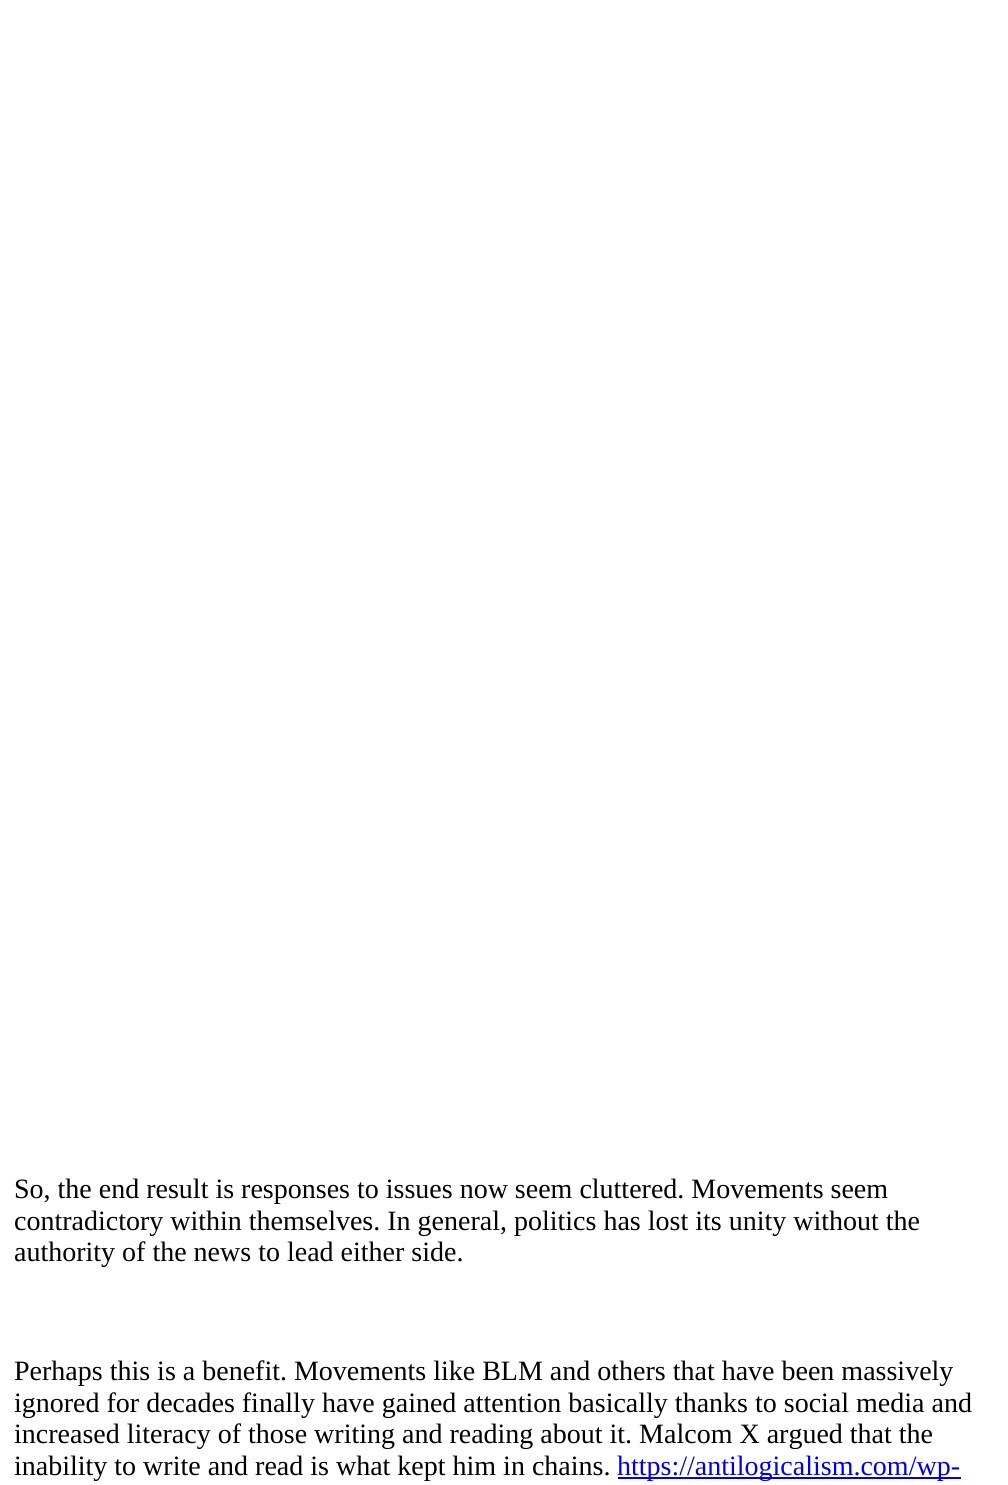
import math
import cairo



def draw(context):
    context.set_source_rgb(1, 1, 1)
    context.paint()
    context.set_source_rgb(0, 0, 238 / 255)
    context.rectangle(618, 1477, 343, 2)
    context.fill()
    context.select_font_face("Liberation Serif")
    context.set_font_size(28)
    context.set_source_rgb(0, 0, 0)
    context.move_to(14, 1198)
    context.show_text("So, the end result is responses to issues now seem cluttered. Movements seem")
    context.move_to(14, 1230)
    context.show_text("contradictory within themselves. In general, politics has lost its unity without the")
    context.move_to(14, 1261)
    context.show_text("authority of the news to lead either side.")
    context.move_to(14, 1380)
    context.show_text("Perhaps this is a benefit. Movements like BLM and others that have been massively")
    context.move_to(14, 1412)
    context.show_text("ignored for decades finally have gained attention basically thanks to social media and")
    context.move_to(14, 1443)
    context.show_text("increased literacy of those writing and reading about it. Malcom X argued that the")
    context.move_to(14, 1475)
    context.show_text("inability to write and read is what kept him in chains.")
    context.set_source_rgb(0, 0, 238 / 255)
    context.move_to(617, 1475)
    context.show_text("https://antilogicalism.com/wp-")


surface = cairo.ImageSurface(cairo.Format.RGB24, 1008, 1485)
context = cairo.Context(surface)
options = cairo.FontOptions()
options.set_hint_metrics(cairo.HintMetrics.OFF)
options.set_hint_style(cairo.HintStyle.NONE)
context.set_font_options(options)
context.set_miter_limit(4)
draw(context)
surface.write_to_png("out.png")
